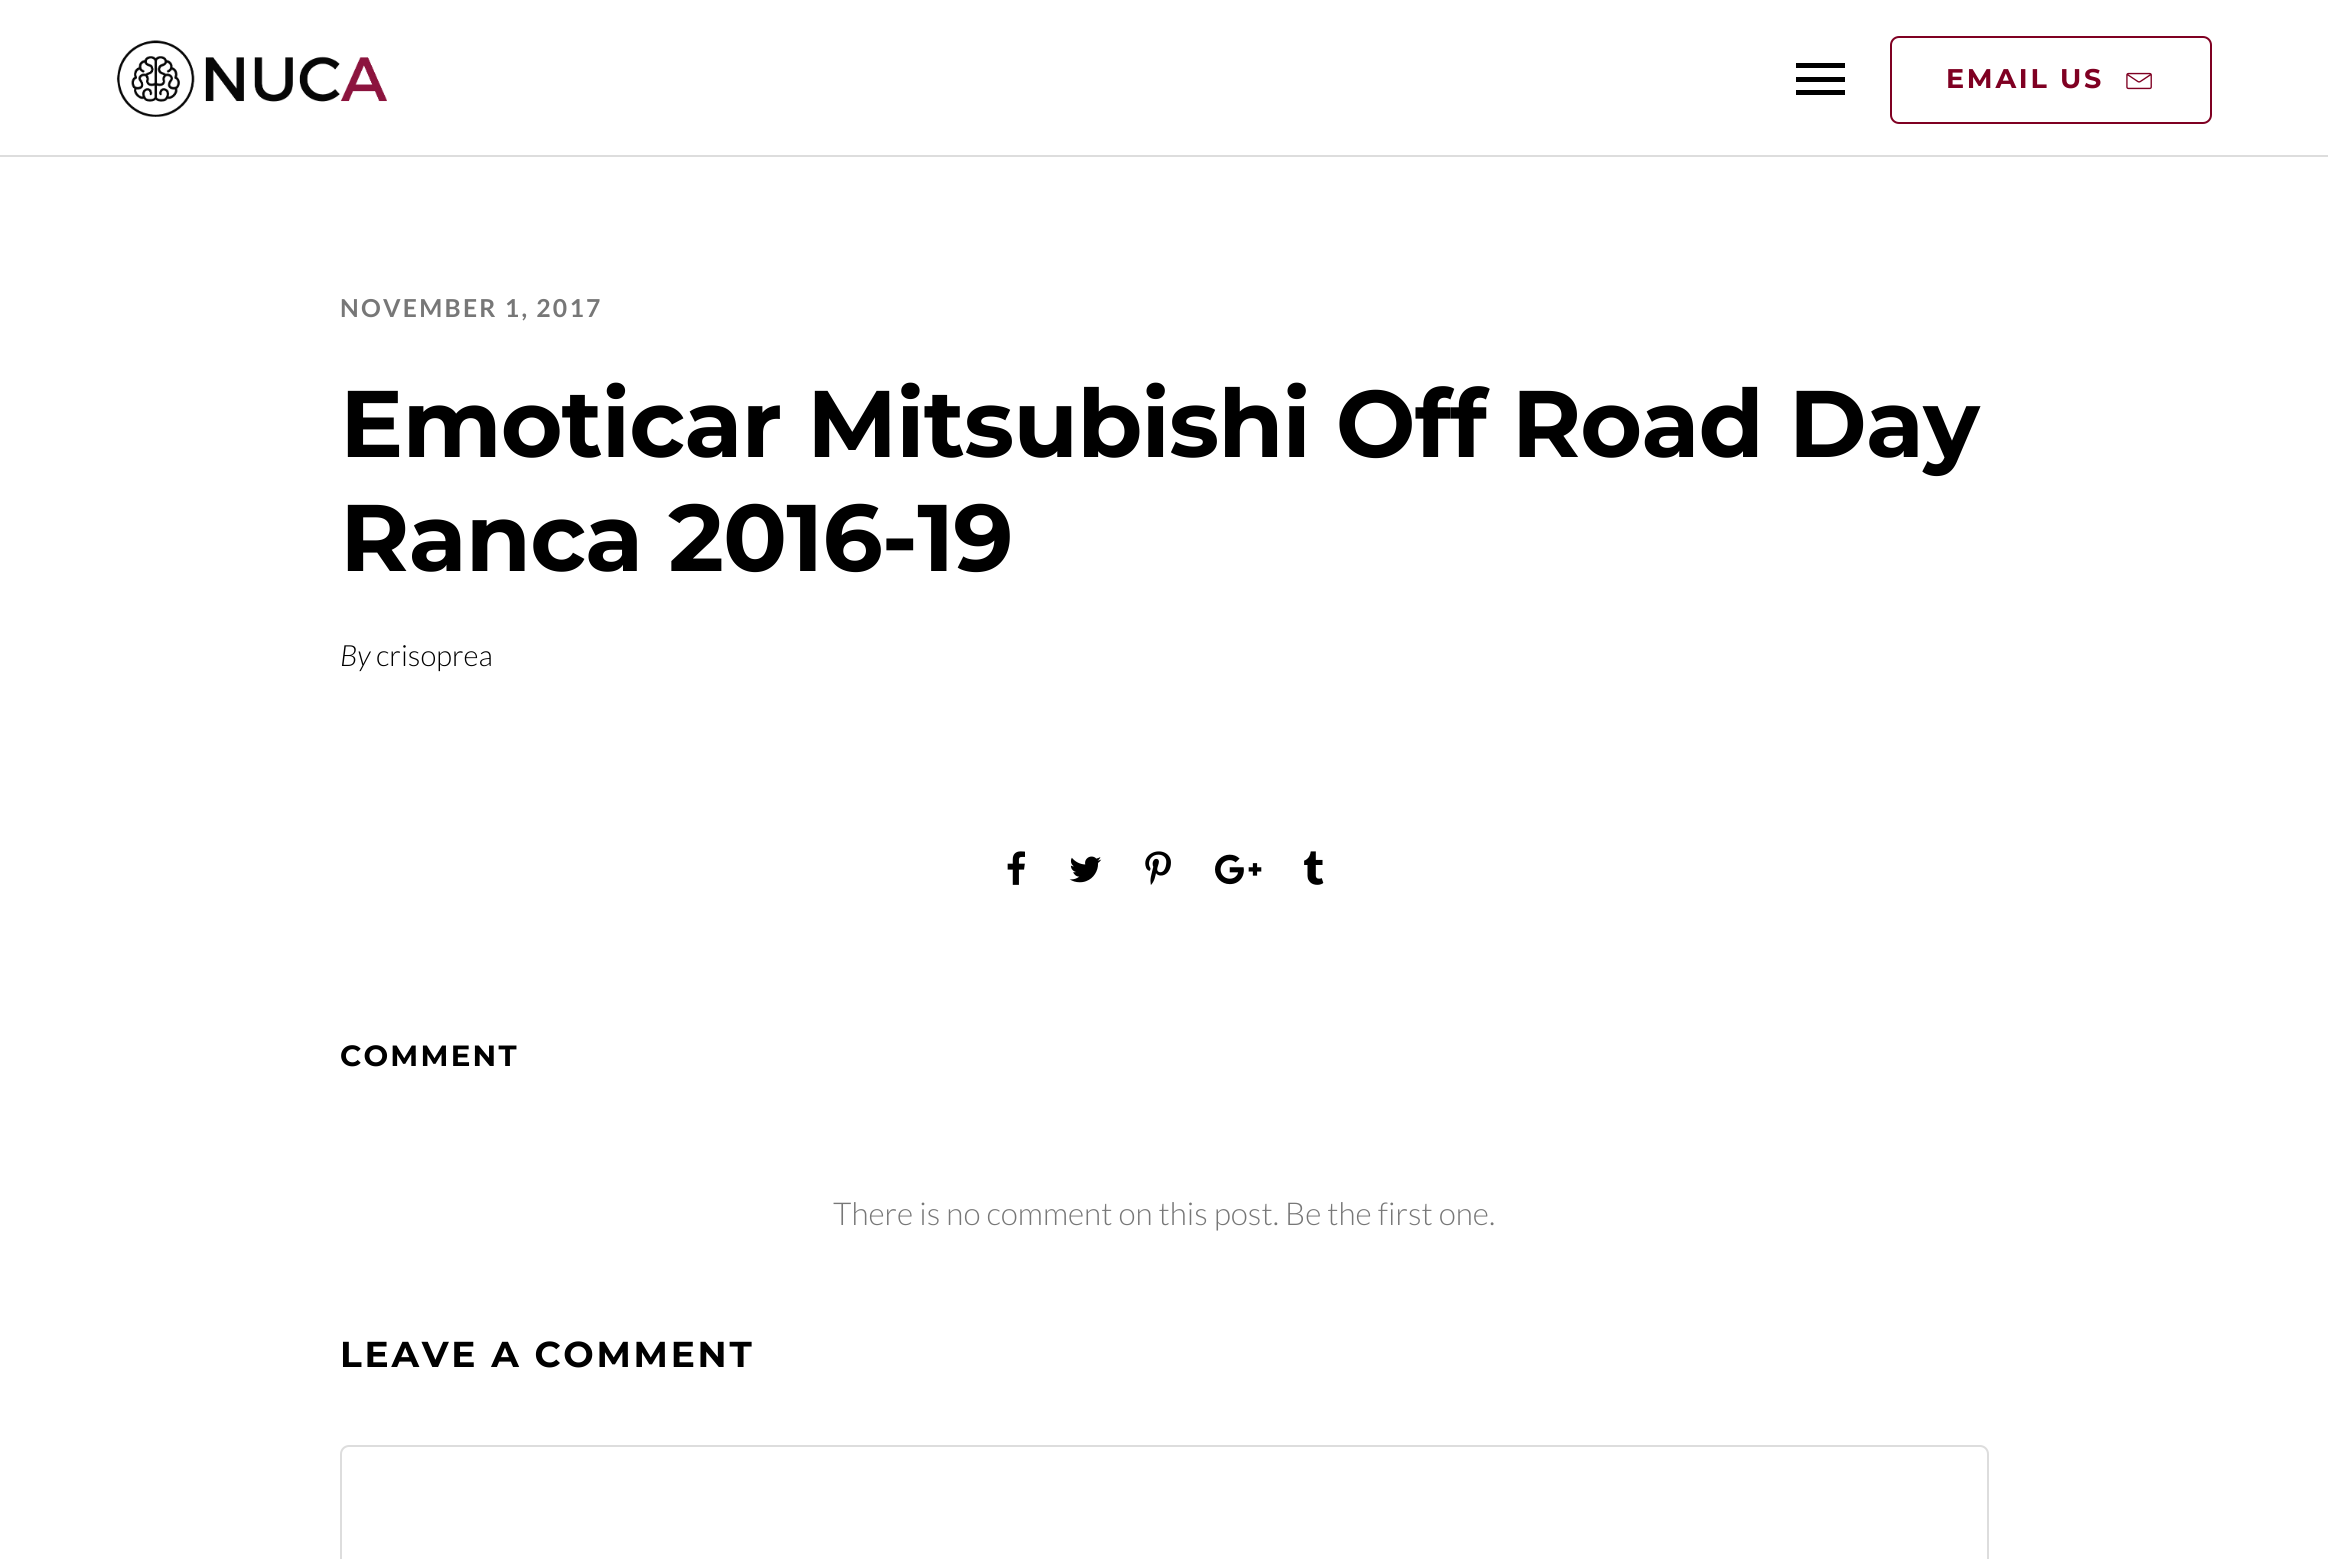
import math
import cairo



def draw_spaced(context, x, y, s, letter, word):
    context.move_to(x, y)
    for ch in s:
        context.show_text(ch)
        context.rel_move_to(letter + word * (ch == ' '), 0)


def rounded_rect(context, x, y, w, h, r):
    context.new_sub_path()
    for i, (u, v) in enumerate([(x + w - r, y + h - r), (x + r, y + h - r), (x + r, y + r), (x + w - r, y + r)]):
        context.arc(u, v, r, i * math.pi / 2, (i + 1) * math.pi / 2)
    context.close_path()


def draw_image(context, path, x, y, w, h):
    context.save()
    context.set_source_surface(cairo.ImageSurface.create_from_png(path), x, y)
    context.rectangle(x, y, w, h)
    context.fill()
    context.restore()


def draw(context):
    context.set_source_rgb(1, 1, 1)
    context.paint()
    context.set_source_rgb(221 / 255, 221 / 255, 221 / 255)
    context.rectangle(0, 155, 2328, 2)
    context.fill()
    draw_image(context, "images/1.png", 116, 40, 271, 77)
    context.set_source_rgb(0, 0, 0)
    context.rectangle(1796, 77, 49, 5)
    context.fill()
    context.rectangle(1796, 63, 49, 5)
    context.fill()
    context.rectangle(1796, 90, 49, 5)
    context.fill()
    rounded_rect(context, 1891, 37, 320, 86, 8)
    context.set_source_rgb(127 / 255, 0, 34 / 255)
    context.stroke()
    draw_image(context, "images/2.png", 2126, 72, 26, 18)
    draw_image(context, "images/3.png", 1007, 851, 18, 34)
    draw_image(context, "images/4.png", 1069, 856, 33, 27)
    draw_image(context, "images/5.png", 1145, 851, 26, 34)
    draw_image(context, "images/6.png", 1215, 854, 47, 31)
    draw_image(context, "images/7.png", 1304, 851, 20, 34)
    rounded_rect(context, 341, 1446, 1647, 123, 8)
    context.set_source_rgb(221 / 255, 221 / 255, 221 / 255)
    context.stroke()
    context.select_font_face("Montserrat", cairo.FontSlant.NORMAL, cairo.FontWeight.BOLD)
    context.set_font_size(27)
    context.set_source_rgb(127 / 255, 0, 34 / 255)
    draw_spaced(context, 1946, 88, "EMAIL US", 2.75, 0)
    context.select_font_face("Lato", cairo.FontSlant.NORMAL, cairo.FontWeight.BOLD)
    context.set_font_size(24.75)
    context.set_source_rgb(119 / 255, 119 / 255, 119 / 255)
    draw_spaced(context, 340, 317, "NOVEMBER 1, 2017", 2.25, 0)
    context.select_font_face("Montserrat", cairo.FontSlant.NORMAL, cairo.FontWeight.BOLD)
    context.set_font_size(94.5)
    context.set_source_rgb(0, 0, 0)
    draw_spaced(context, 340, 457, "Emoticar Mitsubishi Off Road Day", -0.95, 0)
    draw_spaced(context, 340, 571, "Ranca 2016-19", -0.95, 0)
    context.select_font_face("Lato Light", cairo.FontSlant.ITALIC)
    context.set_font_size(29.25)
    context.move_to(340, 666)
    context.show_text("By")
    context.select_font_face("Lato Light")
    context.move_to(376, 666)
    context.show_text("crisoprea")
    context.select_font_face("Montserrat", cairo.FontSlant.NORMAL, cairo.FontWeight.BOLD)
    draw_spaced(context, 340, 1066, "COMMENT", 2.25, 0)
    context.select_font_face("Lato Light")
    context.set_font_size(31.5)
    context.set_source_rgb(119 / 255, 119 / 255, 119 / 255)
    context.move_to(833, 1225)
    context.show_text("There is no comment on this post. Be the first one.")
    context.select_font_face("Montserrat", cairo.FontSlant.NORMAL, cairo.FontWeight.BOLD)
    context.set_font_size(36)
    context.set_source_rgb(0, 0, 0)
    draw_spaced(context, 340, 1367, "LEAVE A COMMENT", 2.75, 0)


surface = cairo.ImageSurface(cairo.Format.RGB24, 2328, 1559)
context = cairo.Context(surface)
options = cairo.FontOptions()
options.set_hint_metrics(cairo.HintMetrics.OFF)
options.set_hint_style(cairo.HintStyle.NONE)
context.set_font_options(options)
context.set_miter_limit(4)
draw(context)
surface.write_to_png("out.png")
